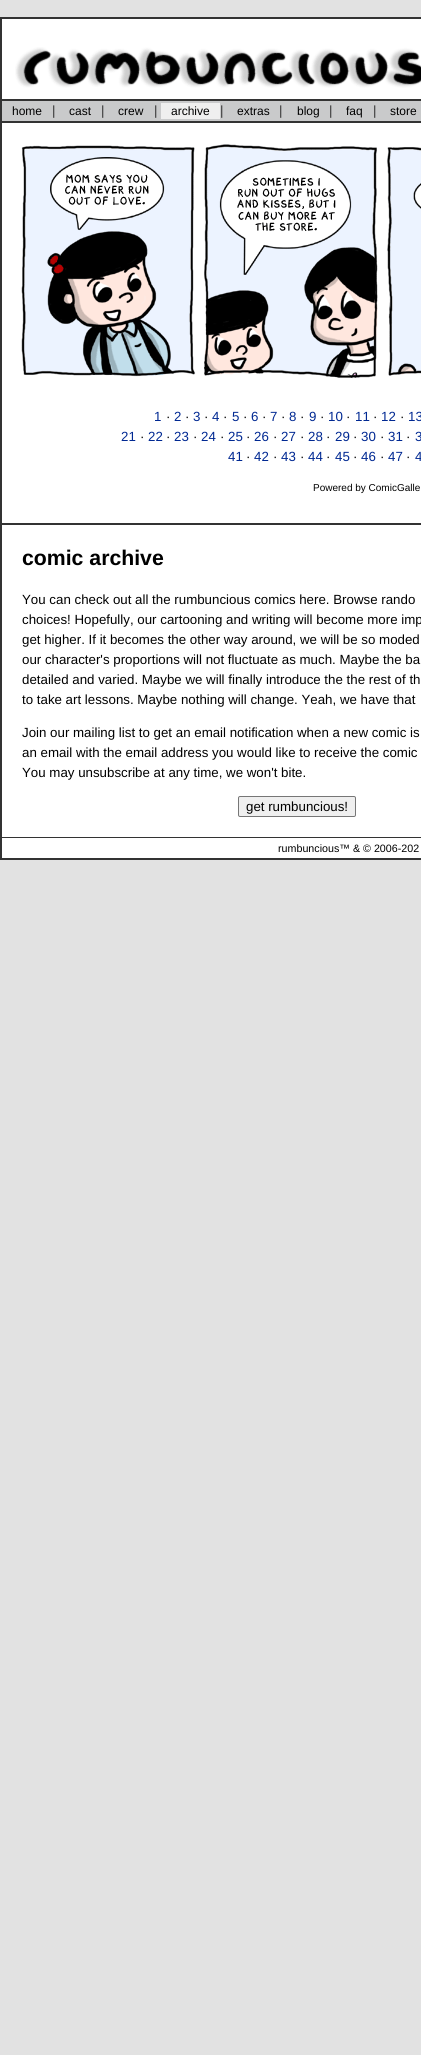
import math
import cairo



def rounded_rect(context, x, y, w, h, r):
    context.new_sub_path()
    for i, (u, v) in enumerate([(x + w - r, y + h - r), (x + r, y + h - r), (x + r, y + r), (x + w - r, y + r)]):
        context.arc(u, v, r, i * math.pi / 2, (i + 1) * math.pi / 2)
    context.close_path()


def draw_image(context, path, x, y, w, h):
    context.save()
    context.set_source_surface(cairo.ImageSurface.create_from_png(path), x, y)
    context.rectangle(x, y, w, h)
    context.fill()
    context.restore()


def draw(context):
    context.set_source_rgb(226 / 255, 226 / 255, 226 / 255)
    context.paint()
    context.set_source_rgb(1, 1, 1)
    context.rectangle(1, 18, 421, 82)
    context.fill_preserve()
    context.set_source_rgb(51 / 255, 51 / 255, 51 / 255)
    context.stroke()
    draw_image(context, "images/1.png", 15, 47, 406, 41)
    context.rectangle(0, 121, 421, 2)
    context.fill()
    context.rectangle(0, 101, 2, 22)
    context.fill()
    context.set_source_rgb(201 / 255, 202 / 255, 203 / 255)
    context.rectangle(2, 101, 419, 20)
    context.fill()
    context.set_source_rgb(239 / 255, 239 / 255, 239 / 255)
    context.rectangle(161, 103, 59, 16)
    context.fill()
    context.set_source_rgb(1, 1, 1)
    context.rectangle(2, 123, 419, 400)
    context.fill()
    context.set_source_rgb(51 / 255, 51 / 255, 51 / 255)
    context.rectangle(0, 523, 421, 2)
    context.fill()
    context.rectangle(0, 123, 2, 714)
    context.fill()
    draw_image(context, "images/2.png", 21, 144, 400, 235)
    context.set_source_rgb(1, 1, 1)
    context.rectangle(2, 525, 419, 312)
    context.fill()
    context.set_source_rgb(239 / 255, 239 / 255, 239 / 255)
    rounded_rect(context, 238.5, 796.5, 117, 20, 1.5)
    context.fill_preserve()
    context.set_source_rgb(118 / 255, 118 / 255, 118 / 255)
    context.set_line_width(1)
    context.stroke()
    context.set_source_rgb(1, 1, 1)
    context.rectangle(2, 838, 419, 20)
    context.fill()
    context.set_source_rgb(51 / 255, 51 / 255, 51 / 255)
    context.rectangle(0, 837, 421, 1)
    context.fill()
    context.rectangle(0, 858, 421, 2)
    context.fill()
    context.rectangle(0, 837, 2, 23)
    context.fill()
    context.select_font_face("Liberation Sans")
    context.set_font_size(12)
    context.set_source_rgb(0, 0, 0)
    context.move_to(12, 115)
    context.show_text("home")
    context.set_font_size(13.3)
    context.set_source_rgb(51 / 255, 51 / 255, 51 / 255)
    context.move_to(52, 115)
    context.show_text("|")
    context.set_font_size(12)
    context.set_source_rgb(0, 0, 0)
    context.move_to(69, 115)
    context.show_text("cast")
    context.set_font_size(13.3)
    context.set_source_rgb(51 / 255, 51 / 255, 51 / 255)
    context.move_to(101, 115)
    context.show_text("|")
    context.set_font_size(12)
    context.set_source_rgb(0, 0, 0)
    context.move_to(118, 115)
    context.show_text("crew")
    context.set_font_size(13.3)
    context.set_source_rgb(51 / 255, 51 / 255, 51 / 255)
    context.move_to(154, 115)
    context.show_text("|")
    context.set_font_size(12)
    context.set_source_rgb(0, 0, 0)
    context.move_to(171, 115)
    context.show_text("archive")
    context.set_font_size(13.3)
    context.set_source_rgb(51 / 255, 51 / 255, 51 / 255)
    context.move_to(220, 115)
    context.show_text("|")
    context.set_font_size(12)
    context.set_source_rgb(0, 0, 0)
    context.move_to(237, 115)
    context.show_text("extras")
    context.set_font_size(13.3)
    context.set_source_rgb(51 / 255, 51 / 255, 51 / 255)
    context.move_to(279, 115)
    context.show_text("|")
    context.set_font_size(12)
    context.set_source_rgb(0, 0, 0)
    context.move_to(297, 115)
    context.show_text("blog")
    context.set_font_size(13.3)
    context.set_source_rgb(51 / 255, 51 / 255, 51 / 255)
    context.move_to(329, 115)
    context.show_text("|")
    context.set_font_size(12)
    context.set_source_rgb(0, 0, 0)
    context.move_to(346, 115)
    context.show_text("faq")
    context.set_font_size(13.3)
    context.set_source_rgb(51 / 255, 51 / 255, 51 / 255)
    context.move_to(373, 115)
    context.show_text("|")
    context.set_font_size(12)
    context.set_source_rgb(0, 0, 0)
    context.move_to(390, 115)
    context.show_text("store")
    context.set_font_size(13.3)
    context.set_source_rgb(0, 40 / 255, 146 / 255)
    context.move_to(154, 421)
    context.show_text("1")
    context.set_source_rgb(0, 0, 0)
    context.move_to(166, 421)
    context.show_text("·")
    context.set_source_rgb(0, 40 / 255, 146 / 255)
    context.move_to(174, 421)
    context.show_text("2")
    context.set_source_rgb(0, 0, 0)
    context.move_to(185, 421)
    context.show_text("·")
    context.set_source_rgb(0, 40 / 255, 146 / 255)
    context.move_to(193, 421)
    context.show_text("3")
    context.set_source_rgb(0, 0, 0)
    context.move_to(204, 421)
    context.show_text("·")
    context.set_source_rgb(0, 40 / 255, 146 / 255)
    context.move_to(212, 421)
    context.show_text("4")
    context.set_source_rgb(0, 0, 0)
    context.move_to(223, 421)
    context.show_text("·")
    context.set_source_rgb(0, 40 / 255, 146 / 255)
    context.move_to(232, 421)
    context.show_text("5")
    context.set_source_rgb(0, 0, 0)
    context.move_to(243, 421)
    context.show_text("·")
    context.set_source_rgb(0, 40 / 255, 146 / 255)
    context.move_to(251, 421)
    context.show_text("6")
    context.set_source_rgb(0, 0, 0)
    context.move_to(262, 421)
    context.show_text("·")
    context.set_source_rgb(0, 40 / 255, 146 / 255)
    context.move_to(270, 421)
    context.show_text("7")
    context.set_source_rgb(0, 0, 0)
    context.move_to(281, 421)
    context.show_text("·")
    context.set_source_rgb(0, 40 / 255, 146 / 255)
    context.move_to(289, 421)
    context.show_text("8")
    context.set_source_rgb(0, 0, 0)
    context.move_to(300, 421)
    context.show_text("·")
    context.set_source_rgb(0, 40 / 255, 146 / 255)
    context.move_to(309, 421)
    context.show_text("9")
    context.set_source_rgb(0, 0, 0)
    context.move_to(320, 421)
    context.show_text("·")
    context.set_source_rgb(0, 40 / 255, 146 / 255)
    context.move_to(328, 421)
    context.show_text("10")
    context.set_source_rgb(0, 0, 0)
    context.move_to(346, 421)
    context.show_text("·")
    context.set_source_rgb(0, 40 / 255, 146 / 255)
    context.move_to(355, 421)
    context.show_text("11")
    context.set_source_rgb(0, 0, 0)
    context.move_to(373, 421)
    context.show_text("·")
    context.set_source_rgb(0, 40 / 255, 146 / 255)
    context.move_to(381, 421)
    context.show_text("12")
    context.set_source_rgb(0, 0, 0)
    context.move_to(400, 421)
    context.show_text("·")
    context.set_source_rgb(0, 40 / 255, 146 / 255)
    context.move_to(408, 421)
    context.show_text("13")
    context.move_to(121, 441)
    context.show_text("21")
    context.set_source_rgb(0, 0, 0)
    context.move_to(140, 441)
    context.show_text("·")
    context.set_source_rgb(0, 40 / 255, 146 / 255)
    context.move_to(148, 441)
    context.show_text("22")
    context.set_source_rgb(0, 0, 0)
    context.move_to(166, 441)
    context.show_text("·")
    context.set_source_rgb(0, 40 / 255, 146 / 255)
    context.move_to(174, 441)
    context.show_text("23")
    context.set_source_rgb(0, 0, 0)
    context.move_to(193, 441)
    context.show_text("·")
    context.set_source_rgb(0, 40 / 255, 146 / 255)
    context.move_to(201, 441)
    context.show_text("24")
    context.set_source_rgb(0, 0, 0)
    context.move_to(220, 441)
    context.show_text("·")
    context.set_source_rgb(0, 40 / 255, 146 / 255)
    context.move_to(228, 441)
    context.show_text("25")
    context.set_source_rgb(0, 0, 0)
    context.move_to(246, 441)
    context.show_text("·")
    context.set_source_rgb(0, 40 / 255, 146 / 255)
    context.move_to(254, 441)
    context.show_text("26")
    context.set_source_rgb(0, 0, 0)
    context.move_to(273, 441)
    context.show_text("·")
    context.set_source_rgb(0, 40 / 255, 146 / 255)
    context.move_to(281, 441)
    context.show_text("27")
    context.set_source_rgb(0, 0, 0)
    context.move_to(300, 441)
    context.show_text("·")
    context.set_source_rgb(0, 40 / 255, 146 / 255)
    context.move_to(308, 441)
    context.show_text("28")
    context.set_source_rgb(0, 0, 0)
    context.move_to(326, 441)
    context.show_text("·")
    context.set_source_rgb(0, 40 / 255, 146 / 255)
    context.move_to(335, 441)
    context.show_text("29")
    context.set_source_rgb(0, 0, 0)
    context.move_to(353, 441)
    context.show_text("·")
    context.set_source_rgb(0, 40 / 255, 146 / 255)
    context.move_to(361, 441)
    context.show_text("30")
    context.set_source_rgb(0, 0, 0)
    context.move_to(380, 441)
    context.show_text("·")
    context.set_source_rgb(0, 40 / 255, 146 / 255)
    context.move_to(388, 441)
    context.show_text("31")
    context.set_source_rgb(0, 0, 0)
    context.move_to(406, 441)
    context.show_text("·")
    context.set_source_rgb(0, 40 / 255, 146 / 255)
    context.move_to(415, 441)
    context.show_text("3")
    context.move_to(228, 461)
    context.show_text("41")
    context.set_source_rgb(0, 0, 0)
    context.move_to(246, 461)
    context.show_text("·")
    context.set_source_rgb(0, 40 / 255, 146 / 255)
    context.move_to(254, 461)
    context.show_text("42")
    context.set_source_rgb(0, 0, 0)
    context.move_to(273, 461)
    context.show_text("·")
    context.set_source_rgb(0, 40 / 255, 146 / 255)
    context.move_to(281, 461)
    context.show_text("43")
    context.set_source_rgb(0, 0, 0)
    context.move_to(300, 461)
    context.show_text("·")
    context.set_source_rgb(0, 40 / 255, 146 / 255)
    context.move_to(308, 461)
    context.show_text("44")
    context.set_source_rgb(0, 0, 0)
    context.move_to(326, 461)
    context.show_text("·")
    context.set_source_rgb(0, 40 / 255, 146 / 255)
    context.move_to(335, 461)
    context.show_text("45")
    context.set_source_rgb(0, 0, 0)
    context.move_to(353, 461)
    context.show_text("·")
    context.set_source_rgb(0, 40 / 255, 146 / 255)
    context.move_to(361, 461)
    context.show_text("46")
    context.set_source_rgb(0, 0, 0)
    context.move_to(380, 461)
    context.show_text("·")
    context.set_source_rgb(0, 40 / 255, 146 / 255)
    context.move_to(388, 461)
    context.show_text("47")
    context.set_source_rgb(0, 0, 0)
    context.move_to(406, 461)
    context.show_text("·")
    context.set_source_rgb(0, 40 / 255, 146 / 255)
    context.move_to(415, 461)
    context.show_text("4")
    context.set_font_size(10)
    context.set_source_rgb(0, 0, 0)
    context.move_to(313, 491)
    context.show_text("Powered by ComicGalle")
    context.select_font_face("Liberation Sans", cairo.FontSlant.NORMAL, cairo.FontWeight.BOLD)
    context.set_font_size(21.25)
    context.move_to(22, 565)
    context.show_text("comic archive")
    context.select_font_face("Liberation Sans")
    context.set_font_size(13.3)
    context.move_to(22, 604)
    context.show_text("You can check out all the rumbuncious comics here. Browse rando")
    context.move_to(22, 624)
    context.show_text("choices! Hopefully, our cartooning and writing will become more imp")
    context.move_to(22, 644)
    context.show_text("get higher. If it becomes the other way around, we will be so moded")
    context.move_to(22, 664)
    context.show_text("our character's proportions will not fluctuate as much. Maybe the ba")
    context.move_to(22, 684)
    context.show_text("detailed and varied. Maybe we will finally introduce the the rest of th")
    context.move_to(22, 704)
    context.show_text("to take art lessons. Maybe nothing will change. Yeah, we have that")
    context.move_to(22, 737)
    context.show_text("Join our mailing list to get an email notification when a new comic is")
    context.move_to(22, 757)
    context.show_text("an email with the email address you would like to receive the comic")
    context.move_to(22, 777)
    context.show_text("You may unsubscribe at any time, we won't bite.")
    context.move_to(246, 811)
    context.show_text("get rumbuncious!")
    context.set_font_size(10.7)
    context.move_to(278, 852)
    context.show_text("rumbuncious™ & © 2006-202")


surface = cairo.ImageSurface(cairo.Format.RGB24, 421, 2055)
context = cairo.Context(surface)
options = cairo.FontOptions()
options.set_hint_metrics(cairo.HintMetrics.OFF)
options.set_hint_style(cairo.HintStyle.NONE)
context.set_font_options(options)
context.set_miter_limit(4)
draw(context)
surface.write_to_png("out.png")
